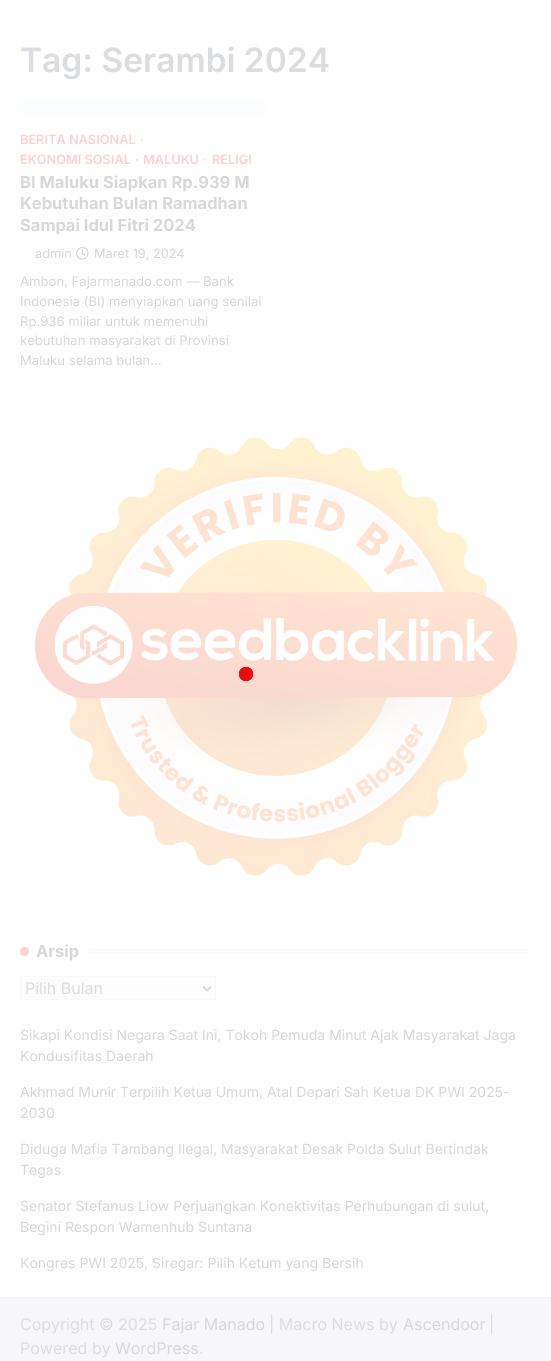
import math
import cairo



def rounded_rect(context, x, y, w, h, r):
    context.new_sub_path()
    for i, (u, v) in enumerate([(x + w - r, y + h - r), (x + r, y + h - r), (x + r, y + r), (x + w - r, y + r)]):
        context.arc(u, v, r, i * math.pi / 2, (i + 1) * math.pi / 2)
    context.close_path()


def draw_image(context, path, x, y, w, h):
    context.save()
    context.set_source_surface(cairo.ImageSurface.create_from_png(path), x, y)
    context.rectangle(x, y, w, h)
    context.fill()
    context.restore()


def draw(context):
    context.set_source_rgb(1, 1, 1)
    context.paint()
    context.set_source_rgb(252 / 255, 253 / 255, 254 / 255)
    rounded_rect(context, 20, 101, 246, 16, 4)
    context.fill()
    draw_image(context, "images/1.png", 76, 246, 13, 14)
    draw_image(context, "images/2.png", 35, 437, 482, 439)
    context.set_source_rgb(252 / 255, 209 / 255, 209 / 255)
    context.arc(24.5, 951.5, 4.5, 0, 2 * math.pi)
    context.fill()
    context.set_source_rgb(250 / 255, 250 / 255, 250 / 255)
    context.rectangle(89, 949, 442, 1)
    context.fill()
    context.rectangle(89, 952, 442, 1)
    context.fill()
    context.set_source_rgb(252 / 255, 252 / 255, 252 / 255)
    context.rectangle(20.5, 976.5, 195, 23)
    context.fill_preserve()
    context.set_source_rgb(248 / 255, 248 / 255, 248 / 255)
    context.set_line_width(1)
    context.stroke()
    context.new_path()
    context.move_to(203, 986.5)
    context.line_to(207, 990.5)
    context.line_to(211, 986.5)
    context.set_source_rgb(221 / 255, 221 / 255, 221 / 255)
    context.set_line_width(2)
    context.stroke()
    context.set_source_rgb(251 / 255, 251 / 255, 251 / 255)
    context.rectangle(20, 1073, 511, 1)
    context.fill()
    context.rectangle(20, 1130, 511, 1)
    context.fill()
    context.rectangle(20, 1187, 511, 1)
    context.fill()
    context.rectangle(20, 1244, 511, 1)
    context.fill()
    gradient = cairo.RadialGradient(246, 674, 0, 246, 674, 7.5)
    gradient.add_color_stop_rgba(0.9, 244 / 255, 105 / 255, 101 / 255, 1)
    gradient.add_color_stop_rgba(1, 251 / 255, 218 / 255, 209 / 255, 1)
    context.set_source(gradient)
    context.rectangle(239, 667, 14, 14)
    context.fill()
    gradient = cairo.RadialGradient(246, 674, 0, 246, 674, 7.5)
    gradient.add_color_stop_rgba(0.9, 237 / 255, 0, 0, 0.52)
    gradient.add_color_stop_rgba(1, 237 / 255, 0, 0, 0)
    context.set_source(gradient)
    context.rectangle(239, 667, 14, 14)
    context.fill()
    context.rectangle(239, 667, 14, 14)
    context.fill()
    context.rectangle(239, 667, 14, 14)
    context.fill()
    context.set_source_rgb(247 / 255, 247 / 255, 249 / 255)
    context.rectangle(0, 1297, 551, 64)
    context.fill()
    context.select_font_face("Inter SemiBold")
    context.set_font_size(33.5)
    context.set_source_rgb(220 / 255, 221 / 255, 224 / 255)
    context.move_to(20, 72)
    context.show_text("Tag: Serambi 2024")
    context.set_font_size(12.75)
    context.set_source_rgb(252 / 255, 209 / 255, 209 / 255)
    context.move_to(20, 144)
    context.show_text("BERITA NASIONAL")
    context.select_font_face("Liberation Serif", cairo.FontSlant.NORMAL, cairo.FontWeight.BOLD)
    context.set_source_rgb(228 / 255, 228 / 255, 228 / 255)
    context.move_to(140, 144)
    context.show_text("∙")
    context.select_font_face("Inter SemiBold")
    context.set_source_rgb(252 / 255, 209 / 255, 209 / 255)
    context.move_to(20, 164)
    context.show_text("EKONOMI SOSIAL")
    context.select_font_face("Liberation Serif", cairo.FontSlant.NORMAL, cairo.FontWeight.BOLD)
    context.set_source_rgb(228 / 255, 228 / 255, 228 / 255)
    context.move_to(135, 164)
    context.show_text("∙")
    context.select_font_face("Inter SemiBold")
    context.set_source_rgb(252 / 255, 209 / 255, 209 / 255)
    context.move_to(143, 164)
    context.show_text("MALUKU")
    context.select_font_face("Liberation Serif", cairo.FontSlant.NORMAL, cairo.FontWeight.BOLD)
    context.set_source_rgb(228 / 255, 228 / 255, 228 / 255)
    context.move_to(203, 164)
    context.show_text("∙")
    context.select_font_face("Inter SemiBold")
    context.set_source_rgb(252 / 255, 209 / 255, 209 / 255)
    context.move_to(212, 164)
    context.show_text("RELIGI")
    context.select_font_face("Inter", cairo.FontSlant.NORMAL, cairo.FontWeight.BOLD)
    context.set_font_size(16.5)
    context.set_source_rgb(216 / 255, 216 / 255, 216 / 255)
    context.move_to(20, 188)
    context.show_text("BI Maluku Siapkan Rp.939 M")
    context.move_to(20, 209)
    context.show_text("Kebutuhan Bulan Ramadhan")
    context.move_to(20, 231)
    context.show_text("Sampai Idul Fitri 2024")
    context.select_font_face("Inter")
    context.set_font_size(12.75)
    context.move_to(35, 258)
    context.show_text("admin")
    context.move_to(94, 258)
    context.show_text("Maret 19, 2024")
    context.set_font_size(13.1)
    context.move_to(20, 286)
    context.show_text("Ambon, Fajarmanado.com — Bank")
    context.move_to(20, 306)
    context.show_text("Indonesia (BI) menyiapkan uang senilai")
    context.move_to(20, 326)
    context.show_text("Rp.936 miliar untuk memenuhi")
    context.move_to(20, 345)
    context.show_text("kebutuhan masyarakat di Provinsi")
    context.move_to(20, 365)
    context.show_text("Maluku selama bulan…")
    context.select_font_face("Inter", cairo.FontSlant.NORMAL, cairo.FontWeight.BOLD)
    context.set_font_size(16.5)
    context.move_to(36, 957)
    context.show_text("Arsip")
    context.select_font_face("Inter")
    context.set_font_size(16)
    context.set_source_rgb(220 / 255, 221 / 255, 224 / 255)
    context.move_to(25, 994)
    context.show_text("Pilih Bulan")
    context.set_font_size(14)
    context.set_source_rgb(216 / 255, 216 / 255, 216 / 255)
    context.move_to(20, 1040)
    context.show_text("Sikapi Kondisi Negara Saat Ini, Tokoh Pemuda Minut Ajak Masyarakat Jaga")
    context.move_to(20, 1061)
    context.show_text("Kondusifitas Daerah")
    context.move_to(20, 1097)
    context.show_text("Akhmad Munir Terpilih Ketua Umum, Atal Depari Sah Ketua DK PWI 2025-")
    context.move_to(20, 1118)
    context.show_text("2030")
    context.move_to(20, 1154)
    context.show_text("Diduga Mafia Tambang Ilegal, Masyarakat Desak Polda Sulut Bertindak")
    context.move_to(20, 1175)
    context.show_text("Tegas")
    context.move_to(20, 1211)
    context.show_text("Senator Stefanus Liow Perjuangkan Konektivitas Perhubungan di sulut,")
    context.move_to(20, 1232)
    context.show_text("Begini Respon Wamenhub Suntana")
    context.move_to(20, 1268)
    context.show_text("Kongres PWI 2025, Siregar: Pilih Ketum yang Bersih")
    context.set_font_size(16)
    context.set_source_rgb(220 / 255, 221 / 255, 224 / 255)
    context.move_to(20, 1330)
    context.show_text("Copyright © 2025")
    context.set_source_rgb(216 / 255, 216 / 255, 216 / 255)
    context.move_to(162, 1330)
    context.show_text("Fajar Manado")
    context.set_source_rgb(220 / 255, 221 / 255, 224 / 255)
    context.move_to(269, 1330)
    context.show_text("| Macro News by")
    context.set_source_rgb(216 / 255, 216 / 255, 216 / 255)
    context.move_to(403, 1330)
    context.show_text("Ascendoor")
    context.set_source_rgb(220 / 255, 221 / 255, 224 / 255)
    context.move_to(489, 1330)
    context.show_text("|")
    context.move_to(20, 1354)
    context.show_text("Powered by")
    context.set_source_rgb(216 / 255, 216 / 255, 216 / 255)
    context.move_to(115, 1354)
    context.show_text("WordPress")
    context.set_source_rgb(220 / 255, 221 / 255, 224 / 255)
    context.move_to(199, 1354)
    context.show_text(".")


surface = cairo.ImageSurface(cairo.Format.RGB24, 551, 1361)
context = cairo.Context(surface)
options = cairo.FontOptions()
options.set_hint_metrics(cairo.HintMetrics.OFF)
options.set_hint_style(cairo.HintStyle.NONE)
context.set_font_options(options)
context.set_miter_limit(4)
draw(context)
surface.write_to_png("out.png")
